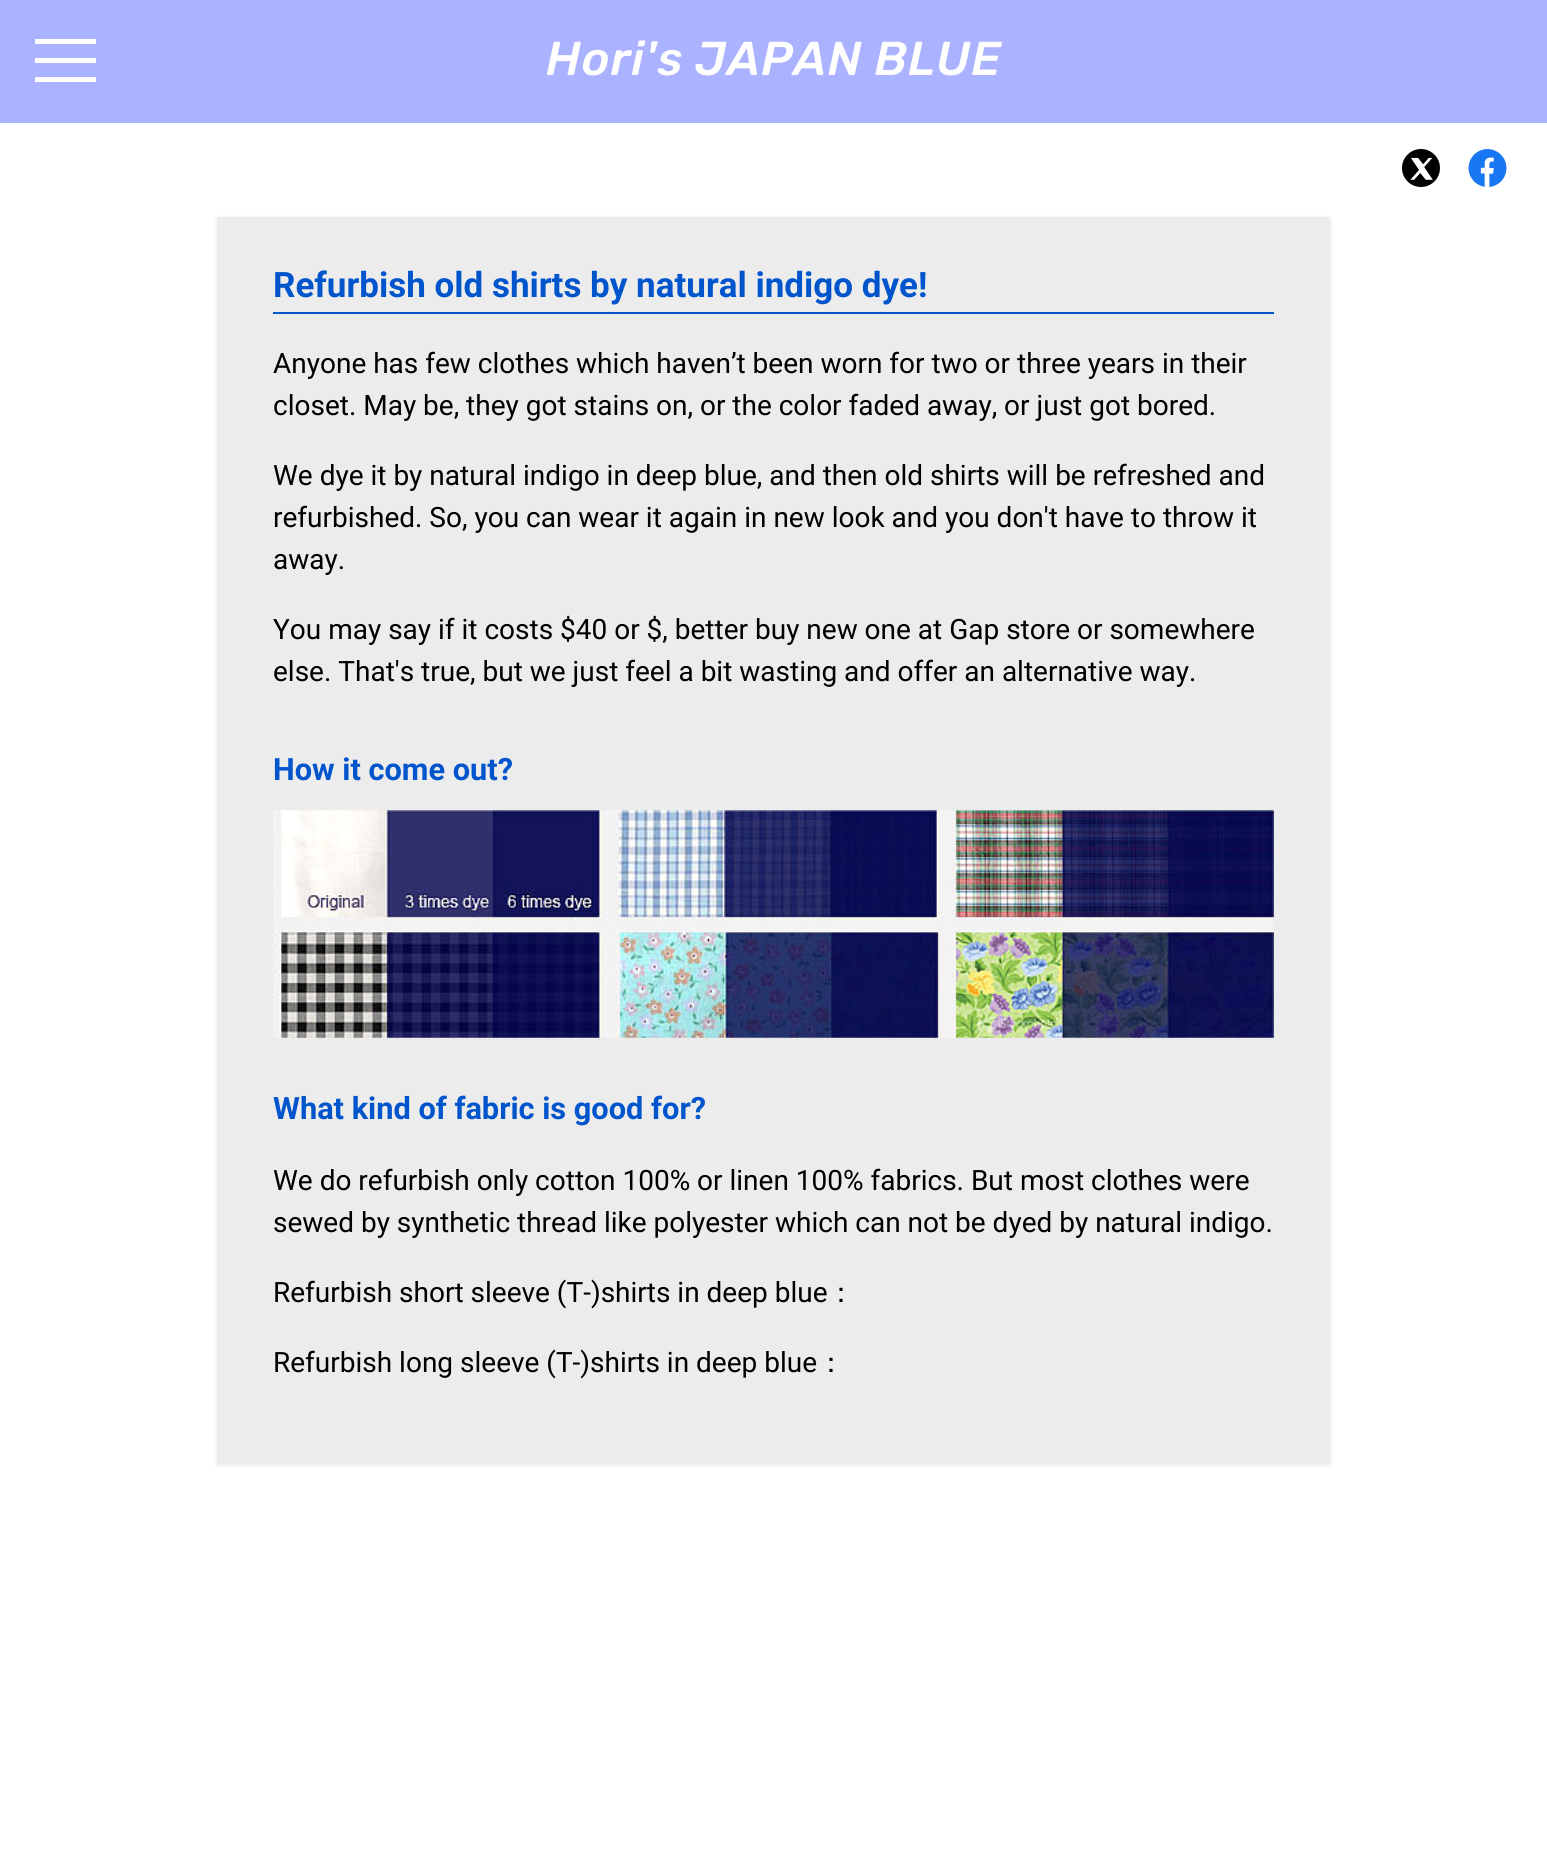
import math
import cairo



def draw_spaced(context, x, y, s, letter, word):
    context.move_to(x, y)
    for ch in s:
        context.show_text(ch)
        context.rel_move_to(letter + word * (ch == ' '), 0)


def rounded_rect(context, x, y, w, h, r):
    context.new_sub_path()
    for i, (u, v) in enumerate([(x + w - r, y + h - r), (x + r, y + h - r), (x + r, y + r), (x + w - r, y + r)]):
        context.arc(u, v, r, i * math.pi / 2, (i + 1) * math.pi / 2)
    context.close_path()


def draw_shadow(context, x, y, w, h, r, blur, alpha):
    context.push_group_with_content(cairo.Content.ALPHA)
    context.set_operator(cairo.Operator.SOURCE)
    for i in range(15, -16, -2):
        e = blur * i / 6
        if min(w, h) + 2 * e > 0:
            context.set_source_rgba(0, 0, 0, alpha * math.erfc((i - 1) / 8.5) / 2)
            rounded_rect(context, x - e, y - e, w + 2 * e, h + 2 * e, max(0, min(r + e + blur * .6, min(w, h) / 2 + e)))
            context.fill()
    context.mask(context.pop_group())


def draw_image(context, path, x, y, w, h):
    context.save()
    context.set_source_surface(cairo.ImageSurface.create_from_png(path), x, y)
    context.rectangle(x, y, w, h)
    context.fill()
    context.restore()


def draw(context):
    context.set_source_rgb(1, 1, 1)
    context.paint()
    context.set_source_rgb(171 / 255, 178 / 255, 1)
    context.rectangle(0, 0, 1547, 123)
    context.fill()
    context.set_source_rgb(1, 1, 1)
    context.rectangle(35, 39, 61, 5)
    context.fill()
    context.rectangle(35, 58, 61, 5)
    context.fill()
    context.rectangle(35, 77, 61, 5)
    context.fill()
    context.set_source_rgb(0, 0, 0)
    context.arc(1421, 168, 19, 0, 2 * math.pi)
    context.fill()
    draw_image(context, "images/1.png", 1410, 157, 23, 23)
    draw_image(context, "images/2.png", 1468, 149, 39, 38)
    context.set_source_rgb(0, 0, 0)
    draw_shadow(context, 217, 219, 1113, 1246, 0, 2.5, 0.1)
    context.set_source_rgb(236 / 255, 236 / 255, 236 / 255)
    context.rectangle(217, 217, 1113, 1246)
    context.fill()
    context.set_source_rgb(0, 85 / 255, 204 / 255)
    context.rectangle(273, 312, 1001, 2)
    context.fill()
    draw_image(context, "images/3.png", 273, 810, 1001, 228)
    context.select_font_face("Rubik Light", cairo.FontSlant.ITALIC)
    context.set_font_size(47.5)
    context.set_source_rgb(1, 1, 1)
    draw_spaced(context, 546, 75, "Hori's JAPAN BLUE", 1, 0)
    context.select_font_face("Roboto", cairo.FontSlant.NORMAL, cairo.FontWeight.BOLD)
    context.set_font_size(35)
    context.set_source_rgb(0, 85 / 255, 204 / 255)
    context.move_to(273, 297)
    context.show_text("Refurbish old shirts by natural indigo dye!")
    context.select_font_face("Roboto")
    context.set_font_size(28)
    context.set_source_rgb(0, 0, 0)
    context.move_to(273, 373)
    context.show_text("Anyone has few clothes which haven’t been worn for two or three years in their")
    context.move_to(273, 415)
    context.show_text("closet. May be, they got stains on, or the color faded away, or just got bored.")
    context.move_to(273, 485)
    context.show_text("We dye it by natural indigo in deep blue, and then old shirts will be refreshed and")
    context.move_to(273, 527)
    context.show_text("refurbished. So, you can wear it again in new look and you don't have to throw it")
    context.move_to(273, 569)
    context.show_text("away.")
    context.move_to(273, 639)
    context.show_text("You may say if it costs $40 or $, better buy new one at Gap store or somewhere")
    context.move_to(273, 681)
    context.show_text("else. That's true, but we just feel a bit wasting and offer an alternative way.")
    context.select_font_face("Roboto", cairo.FontSlant.NORMAL, cairo.FontWeight.BOLD)
    context.set_font_size(30.75)
    context.set_source_rgb(0, 85 / 255, 204 / 255)
    context.move_to(273, 780)
    context.show_text("How it come out?")
    context.move_to(273, 1119)
    context.show_text("What kind of fabric is good for?")
    context.select_font_face("Roboto")
    context.set_font_size(28)
    context.set_source_rgb(0, 0, 0)
    context.move_to(273, 1190)
    context.show_text("We do refurbish only cotton 100% or linen 100% fabrics. But most clothes were")
    context.move_to(273, 1232)
    context.show_text("sewed by synthetic thread like polyester which can not be dyed by natural indigo.")
    context.move_to(273, 1302)
    context.show_text("Refurbish short sleeve (T-)shirts in deep blue")
    context.select_font_face("WenQuanYi Zen Hei Medium")
    context.move_to(827, 1302)
    context.show_text("：")
    context.select_font_face("Roboto")
    context.move_to(273, 1372)
    context.show_text("Refurbish long sleeve (T-)shirts in deep blue")
    context.select_font_face("WenQuanYi Zen Hei Medium")
    context.move_to(817, 1372)
    context.show_text("：")


surface = cairo.ImageSurface(cairo.Format.RGB24, 1547, 1867)
context = cairo.Context(surface)
options = cairo.FontOptions()
options.set_hint_metrics(cairo.HintMetrics.OFF)
options.set_hint_style(cairo.HintStyle.NONE)
context.set_font_options(options)
context.set_miter_limit(4)
draw(context)
surface.write_to_png("out.png")
